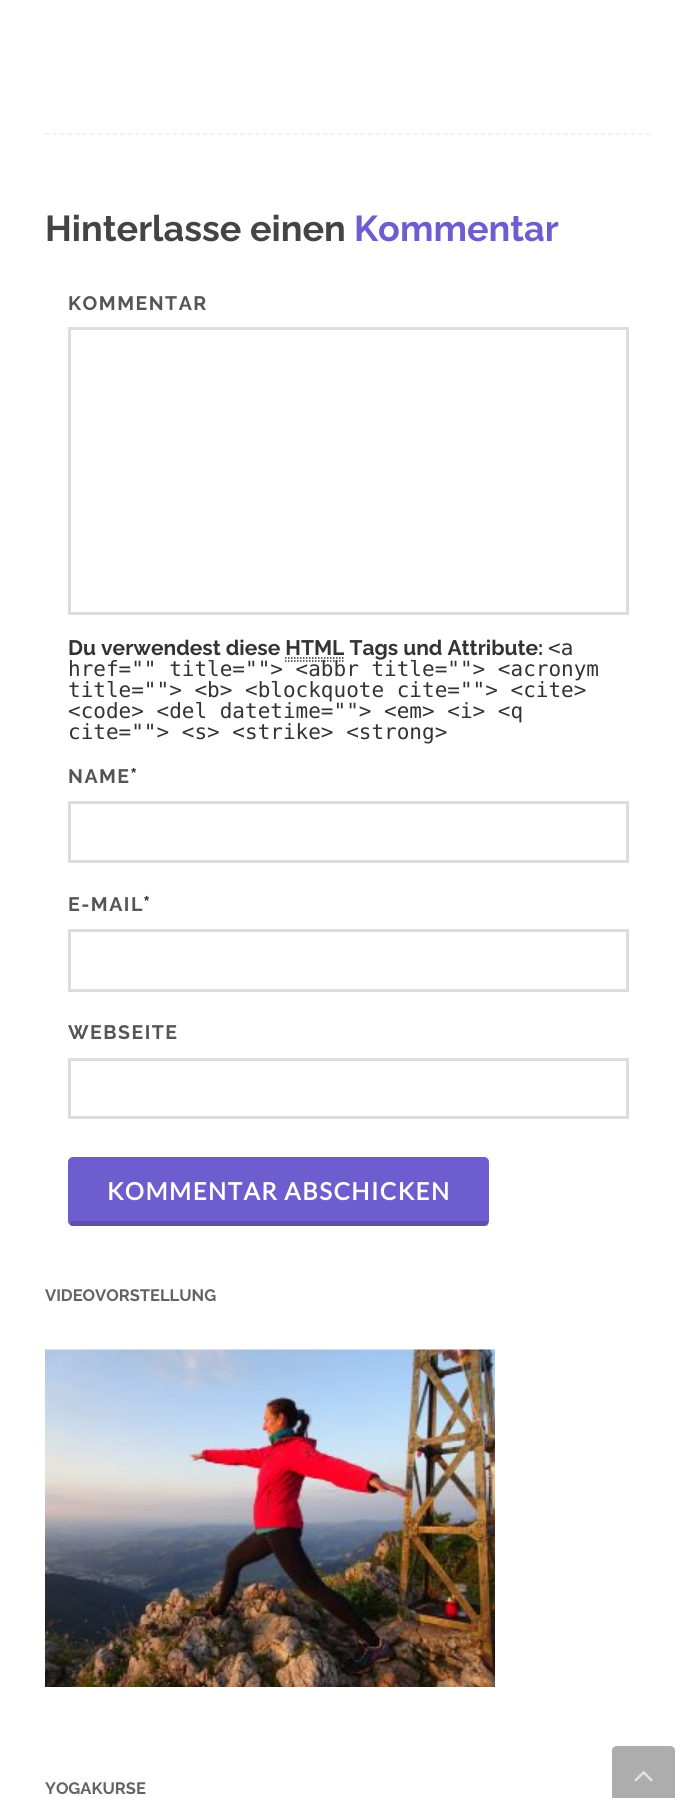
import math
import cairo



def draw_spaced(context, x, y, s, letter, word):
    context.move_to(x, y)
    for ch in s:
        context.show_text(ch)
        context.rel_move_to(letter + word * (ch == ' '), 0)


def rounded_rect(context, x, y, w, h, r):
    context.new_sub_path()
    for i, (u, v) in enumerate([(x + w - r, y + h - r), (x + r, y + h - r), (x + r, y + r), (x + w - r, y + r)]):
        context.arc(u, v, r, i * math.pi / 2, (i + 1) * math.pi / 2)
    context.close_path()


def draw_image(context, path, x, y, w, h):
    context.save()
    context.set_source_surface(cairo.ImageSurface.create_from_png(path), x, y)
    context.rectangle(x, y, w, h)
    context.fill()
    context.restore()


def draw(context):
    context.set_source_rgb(1, 1, 1)
    context.paint()
    context.new_path()
    context.move_to(45, 134)
    context.line_to(651, 134)
    context.set_source_rgb(238 / 255, 238 / 255, 238 / 255)
    context.set_line_width(1.5)
    context.set_dash([4.5, 3.01])
    context.stroke()
    context.rectangle(69.5, 328.5, 558, 285)
    context.set_source_rgb(221 / 255, 221 / 255, 221 / 255)
    context.set_line_width(3)
    context.set_dash([])
    context.stroke()
    context.new_path()
    context.move_to(285, 661)
    context.line_to(343.5, 661)
    context.move_to(285, 658)
    context.line_to(344, 658)
    context.set_source_rgb(51 / 255, 51 / 255, 51 / 255)
    context.set_line_width(1.5)
    context.set_dash([1.5, 1.5])
    context.stroke()
    context.rectangle(69.5, 802.5, 558, 59)
    context.set_source_rgb(221 / 255, 221 / 255, 221 / 255)
    context.set_line_width(3)
    context.set_dash([])
    context.stroke()
    context.rectangle(69.5, 930.5, 558, 60)
    context.stroke()
    context.rectangle(69.5, 1059.5, 558, 58)
    context.stroke()
    context.set_source_rgb(110 / 255, 93 / 255, 206 / 255)
    rounded_rect(context, 68, 1157, 421, 69, 5)
    context.fill()
    context.set_source_rgba(0, 0, 0, 0.15)
    context.rectangle(71, 1221, 417, 5)
    context.fill()
    draw_image(context, "images/1.png", 45, 1349, 450, 338)
    context.set_source_rgb(173 / 255, 173 / 255, 173 / 255)
    context.new_path()
    context.move_to(617, 1746)
    context.line_to(670, 1746)
    context.curve_to(673, 1746, 675, 1748, 675, 1751)
    context.line_to(675, 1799)
    context.line_to(612, 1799)
    context.line_to(612, 1751)
    context.curve_to(612, 1748, 614, 1746, 617, 1746)
    context.close_path()
    context.fill()
    draw_image(context, "images/2.png", 634, 1771, 19, 11)
    context.select_font_face("Raleway", cairo.FontSlant.NORMAL, cairo.FontWeight.BOLD)
    context.set_font_size(36)
    context.set_source_rgb(68 / 255, 68 / 255, 68 / 255)
    context.move_to(45, 241)
    context.show_text("Hinterlasse einen")
    context.set_source_rgb(110 / 255, 93 / 255, 206 / 255)
    context.move_to(354, 241)
    context.show_text("Kommentar")
    context.set_font_size(19.5)
    context.set_source_rgb(85 / 255, 85 / 255, 85 / 255)
    draw_spaced(context, 68, 310, "KOMMENTAR", 1.5, 0)
    context.set_font_size(21)
    context.set_source_rgb(51 / 255, 51 / 255, 51 / 255)
    context.move_to(68, 655)
    context.show_text("Du verwendest diese HTML Tags und Attribute:")
    context.select_font_face("DejaVu Sans Mono")
    context.move_to(548, 655)
    context.show_text("<a")
    context.move_to(68, 676)
    context.show_text("href=\"\" title=\"\"> <abbr title=\"\"> <acronym")
    context.move_to(68, 697)
    context.show_text("title=\"\"> <b> <blockquote cite=\"\"> <cite>")
    context.move_to(68, 718)
    context.show_text("<code> <del datetime=\"\"> <em> <i> <q")
    context.move_to(68, 739)
    context.show_text("cite=\"\"> <s> <strike> <strong>")
    context.select_font_face("Raleway", cairo.FontSlant.NORMAL, cairo.FontWeight.BOLD)
    context.set_font_size(19.5)
    context.set_source_rgb(85 / 255, 85 / 255, 85 / 255)
    draw_spaced(context, 68, 783, "NAME", 1.5, 0)
    context.set_font_size(21)
    context.set_source_rgb(51 / 255, 51 / 255, 51 / 255)
    context.move_to(130, 783)
    context.show_text("*")
    context.set_font_size(19.5)
    context.set_source_rgb(85 / 255, 85 / 255, 85 / 255)
    draw_spaced(context, 68, 911, "E-MAIL", 1.5, 0)
    context.set_font_size(21)
    context.set_source_rgb(51 / 255, 51 / 255, 51 / 255)
    context.move_to(143, 911)
    context.show_text("*")
    context.set_font_size(19.5)
    context.set_source_rgb(85 / 255, 85 / 255, 85 / 255)
    draw_spaced(context, 68, 1039, "WEBSEITE", 1.5, 0)
    context.select_font_face("Lato", cairo.FontSlant.NORMAL, cairo.FontWeight.BOLD)
    context.set_font_size(24)
    context.set_source_rgb(1, 1, 1)
    draw_spaced(context, 107, 1200, "KOMMENTAR ABSCHICKEN", 1.5, 0)
    context.select_font_face("Raleway", cairo.FontSlant.NORMAL, cairo.FontWeight.BOLD)
    context.set_font_size(16.5)
    context.set_source_rgb(99 / 255, 99 / 255, 99 / 255)
    context.move_to(45, 1301)
    context.show_text("VIDEOVORSTELLUNG")
    context.move_to(45, 1794)
    context.show_text("YOGAKURSE")


surface = cairo.ImageSurface(cairo.Format.RGB24, 695, 1798)
context = cairo.Context(surface)
options = cairo.FontOptions()
options.set_hint_metrics(cairo.HintMetrics.OFF)
options.set_hint_style(cairo.HintStyle.NONE)
context.set_font_options(options)
context.set_miter_limit(4)
draw(context)
surface.write_to_png("out.png")
